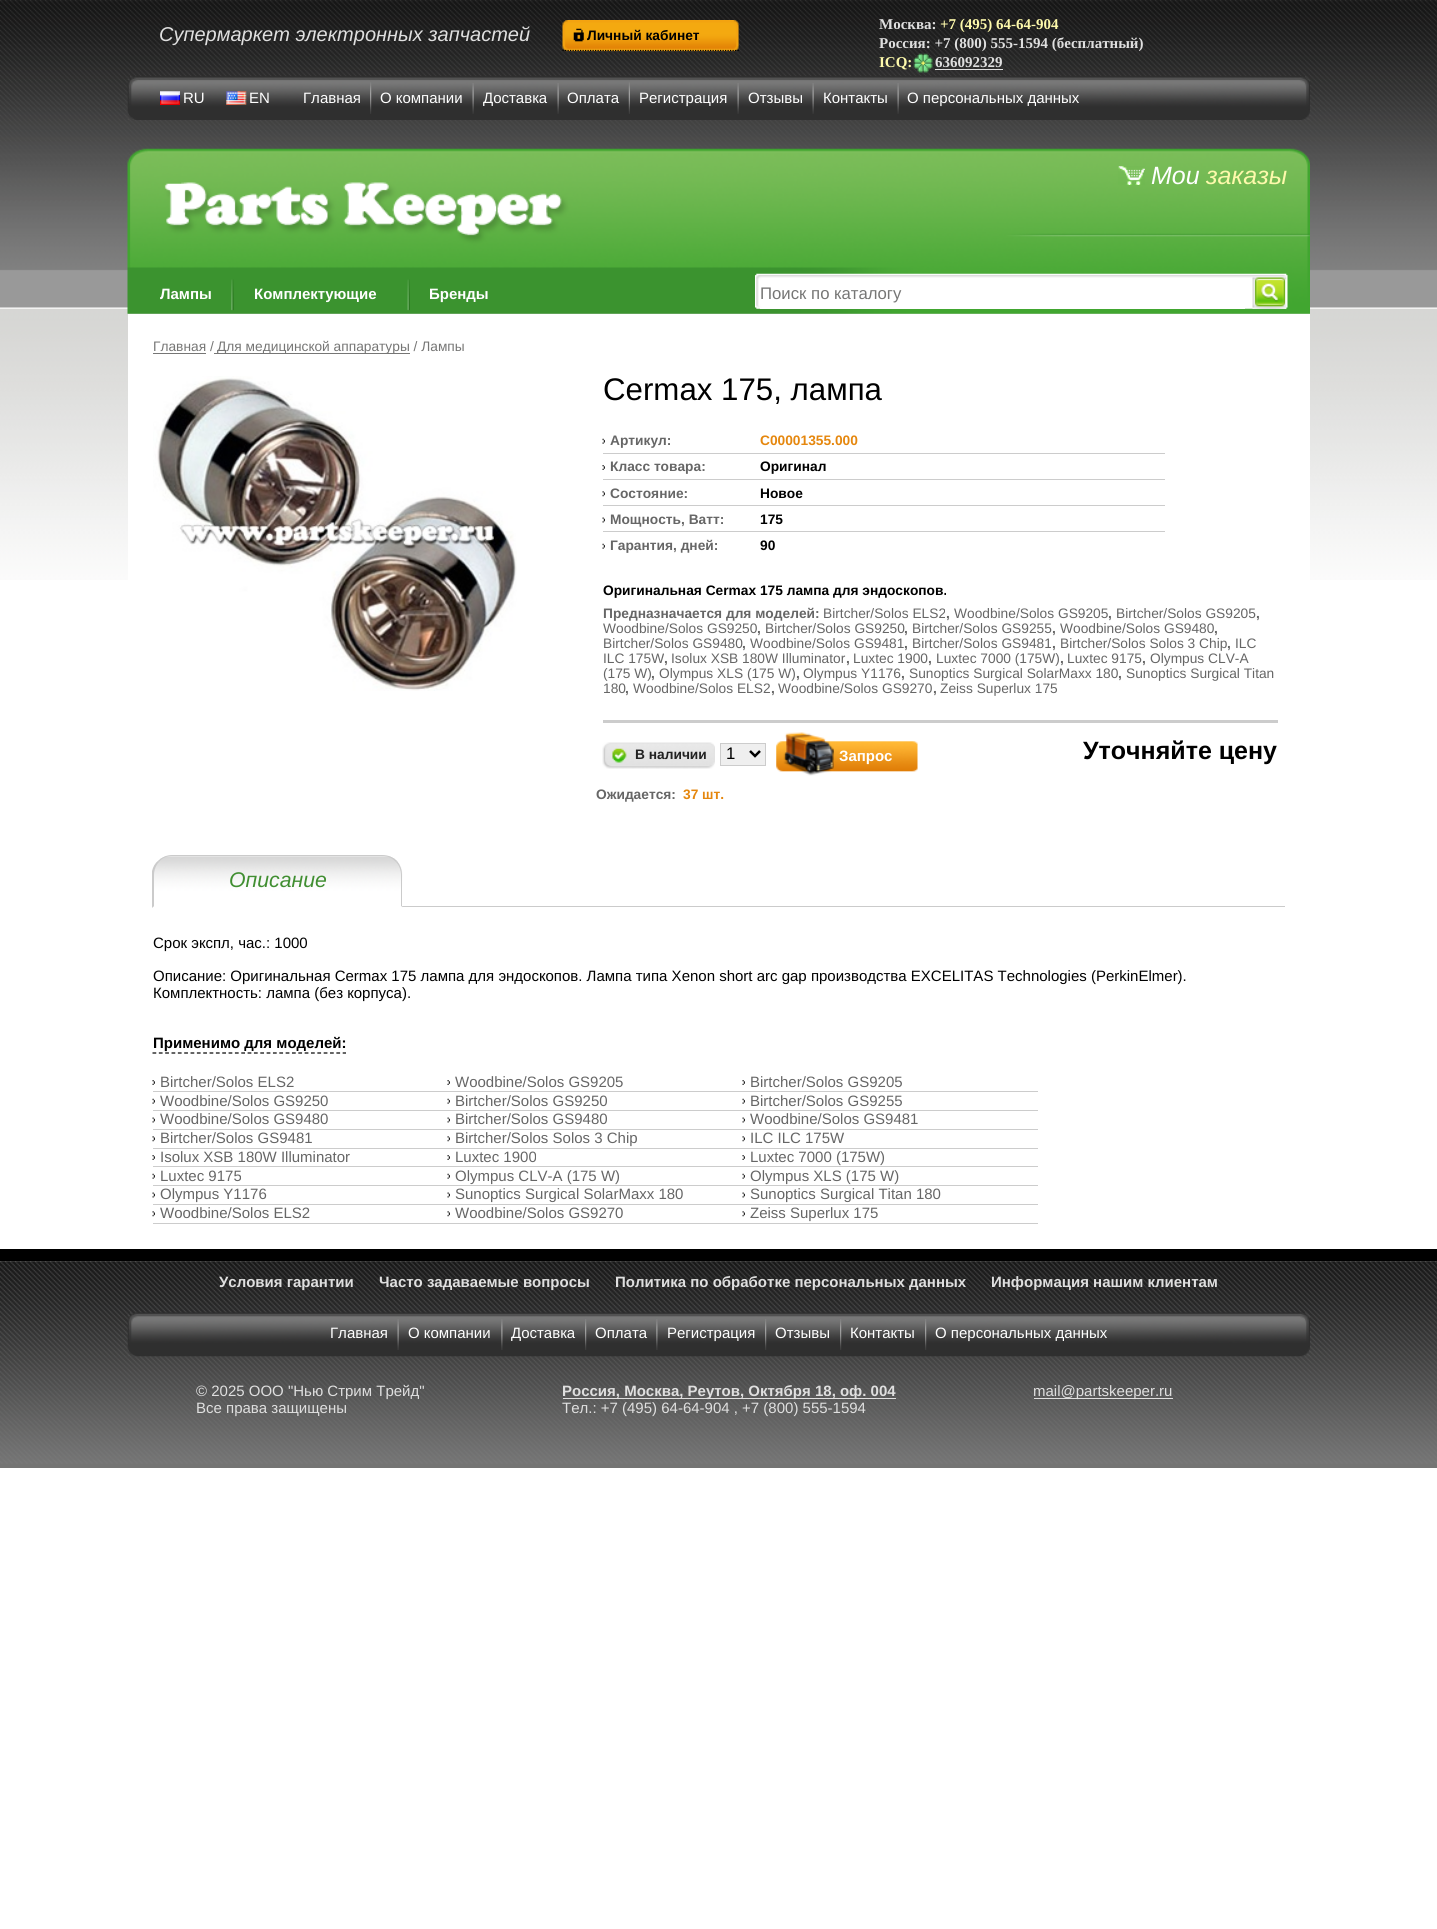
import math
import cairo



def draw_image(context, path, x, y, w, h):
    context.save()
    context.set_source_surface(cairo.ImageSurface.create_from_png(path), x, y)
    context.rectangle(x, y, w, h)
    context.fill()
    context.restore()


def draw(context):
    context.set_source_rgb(1, 1, 1)
    context.paint()
    draw_image(context, "images/1.png", 0, 0, 1437, 580)
    draw_image(context, "images/2.png", 562, 20, 177, 32)
    context.save()
    context.rectangle(530, 20, 209, 31)
    context.clip()
    context.new_path()
    context.move_to(562.5, 50.5)
    context.line_to(739, 50.5)
    context.set_source_rgb(0, 0, 0)
    context.set_line_width(1.2)
    context.set_dash([1.25, 1.25])
    context.stroke()
    context.restore()
    draw_image(context, "images/3.png", 913, 53, 20, 20)
    context.set_source_rgb(223 / 255, 223 / 255, 223 / 255)
    context.rectangle(935, 69, 68, 1)
    context.fill()
    draw_image(context, "images/4.png", 127, 76, 1183, 44)
    draw_image(context, "images/5.png", 160, 91, 20, 14)
    draw_image(context, "images/6.png", 226, 91, 21, 14)
    draw_image(context, "images/7.png", 370, 82, 2, 32)
    draw_image(context, "images/8.png", 472, 83, 2, 31)
    draw_image(context, "images/9.png", 557, 83, 2, 31)
    draw_image(context, "images/10.png", 628, 82, 2, 32)
    draw_image(context, "images/11.png", 737, 83, 2, 31)
    draw_image(context, "images/12.png", 812, 83, 2, 31)
    draw_image(context, "images/13.png", 897, 83, 2, 31)
    draw_image(context, "images/14.png", 127, 148, 1183, 166)
    draw_image(context, "images/15.png", 1118, 166, 27, 19)
    draw_image(context, "images/16.png", 231, 279, 3, 32)
    draw_image(context, "images/17.png", 407, 279, 3, 32)
    draw_image(context, "images/18.png", 755, 273, 533, 36)
    context.set_source_rgb(1, 1, 1)
    context.rectangle(760, 308, 485, 1)
    context.fill()
    draw_image(context, "images/19.png", 1252, 277, 35, 32)
    context.rectangle(128, 314, 1182, 266)
    context.fill()
    context.set_source_rgb(118 / 255, 118 / 255, 117 / 255)
    context.rectangle(153, 353, 53, 1)
    context.fill()
    context.rectangle(214, 353, 196, 1)
    context.fill()
    draw_image(context, "images/20.png", 153, 376, 364, 315)
    context.set_source_rgb(204 / 255, 204 / 255, 204 / 255)
    context.rectangle(603, 453, 562, 1)
    context.fill()
    draw_image(context, "images/21.png", 602, 438, 3, 6)
    context.rectangle(603, 479, 562, 1)
    context.fill()
    draw_image(context, "images/22.png", 602, 465, 3, 5)
    context.rectangle(603, 505, 562, 1)
    context.fill()
    draw_image(context, "images/23.png", 602, 491, 3, 6)
    context.rectangle(603, 531, 562, 1)
    context.fill()
    draw_image(context, "images/24.png", 602, 517, 3, 6)
    draw_image(context, "images/21.png", 602, 543, 3, 6)
    context.rectangle(603, 720, 675, 3)
    context.fill()
    draw_image(context, "images/25.png", 602, 742, 113, 27)
    context.set_source_rgb(239 / 255, 239 / 255, 239 / 255)
    context.rectangle(720.5, 743.5, 45, 22)
    context.fill_preserve()
    context.set_source_rgb(204 / 255, 204 / 255, 204 / 255)
    context.set_line_width(1)
    context.stroke()
    context.new_path()
    context.move_to(750, 751)
    context.line_to(755, 756)
    context.line_to(760, 751)
    context.set_source_rgb(0, 0, 0)
    context.set_line_width(2.5)
    context.stroke()
    draw_image(context, "images/26.png", 776, 732, 142, 44)
    context.set_source_rgb(203 / 255, 203 / 255, 203 / 255)
    context.rectangle(402, 906, 883, 1)
    context.fill()
    draw_image(context, "images/27.png", 152, 856, 251, 52)
    context.new_path()
    context.move_to(172, 855)
    context.curve_to(167, 855, 162, 857, 158, 861)
    context.line_to(159, 862)
    context.curve_to(162, 858, 167, 856, 172, 856)
    context.line_to(382, 856)
    context.curve_to(388, 856, 392, 858, 396, 862)
    context.line_to(397, 861)
    context.curve_to(393, 857, 388, 855, 382, 855)
    context.close_path()
    context.fill()
    context.new_path()
    context.move_to(397, 861)
    context.curve_to(400, 865, 402, 870, 402, 875)
    context.line_to(402, 907)
    context.line_to(401, 906)
    context.line_to(401, 875)
    context.curve_to(401, 870, 399, 865, 396, 862)
    context.close_path()
    context.fill()
    context.set_source_rgb(1, 1, 1)
    context.new_path()
    context.move_to(402, 907)
    context.line_to(402, 908)
    context.line_to(152, 908)
    context.line_to(154, 906)
    context.line_to(401, 906)
    context.close_path()
    context.fill()
    context.set_source_rgb(203 / 255, 203 / 255, 203 / 255)
    context.new_path()
    context.move_to(152, 908)
    context.line_to(152, 871)
    context.curve_to(153, 867, 155, 863, 158, 861)
    context.line_to(159, 862)
    context.curve_to(156, 865, 154, 870, 154, 875)
    context.line_to(154, 906)
    context.close_path()
    context.fill()
    context.new_path()
    context.move_to(152.5, 1053)
    context.line_to(346, 1053)
    context.set_source_rgb(0, 0, 0)
    context.set_line_width(1.2)
    context.set_dash([3.75, 2.59])
    context.stroke()
    draw_image(context, "images/22.png", 152, 1080, 3, 5)
    context.set_source_rgb(204 / 255, 204 / 255, 204 / 255)
    context.rectangle(153, 1091, 885, 1)
    context.fill()
    draw_image(context, "images/22.png", 447, 1080, 3, 5)
    draw_image(context, "images/22.png", 742, 1080, 3, 5)
    draw_image(context, "images/21.png", 152, 1098, 3, 6)
    context.rectangle(153, 1110, 885, 1)
    context.fill()
    draw_image(context, "images/21.png", 447, 1098, 3, 6)
    draw_image(context, "images/21.png", 742, 1098, 3, 6)
    draw_image(context, "images/24.png", 152, 1117, 3, 6)
    context.rectangle(153, 1129, 885, 1)
    context.fill()
    draw_image(context, "images/24.png", 447, 1117, 3, 6)
    draw_image(context, "images/24.png", 742, 1117, 3, 6)
    draw_image(context, "images/23.png", 152, 1136, 3, 6)
    context.rectangle(153, 1148, 885, 1)
    context.fill()
    draw_image(context, "images/23.png", 447, 1136, 3, 6)
    draw_image(context, "images/23.png", 742, 1136, 3, 6)
    draw_image(context, "images/22.png", 152, 1155, 3, 5)
    context.rectangle(153, 1166, 885, 1)
    context.fill()
    draw_image(context, "images/22.png", 447, 1155, 3, 5)
    draw_image(context, "images/22.png", 742, 1155, 3, 5)
    draw_image(context, "images/28.png", 152, 1173, 3, 6)
    context.rectangle(153, 1185, 885, 1)
    context.fill()
    draw_image(context, "images/28.png", 447, 1173, 3, 6)
    draw_image(context, "images/28.png", 742, 1173, 3, 6)
    draw_image(context, "images/24.png", 152, 1192, 3, 6)
    context.rectangle(153, 1204, 885, 1)
    context.fill()
    draw_image(context, "images/24.png", 447, 1192, 3, 6)
    draw_image(context, "images/24.png", 742, 1192, 3, 6)
    draw_image(context, "images/23.png", 152, 1211, 3, 6)
    context.rectangle(153, 1223, 885, 1)
    context.fill()
    draw_image(context, "images/23.png", 447, 1211, 3, 6)
    draw_image(context, "images/23.png", 742, 1211, 3, 6)
    context.set_source_rgb(116 / 255, 116 / 255, 115 / 255)
    context.rectangle(0, 1261, 1437, 207)
    context.fill()
    draw_image(context, "images/29.png", 0, 1261, 1437, 203)
    context.set_source_rgb(0, 0, 0)
    context.rectangle(0, 1249, 1437, 12)
    context.fill()
    draw_image(context, "images/30.png", 127, 1312, 1183, 45)
    draw_image(context, "images/31.png", 397, 1319, 2, 31)
    draw_image(context, "images/32.png", 501, 1319, 2, 31)
    draw_image(context, "images/33.png", 585, 1319, 2, 31)
    draw_image(context, "images/34.png", 656, 1319, 2, 31)
    draw_image(context, "images/35.png", 765, 1319, 2, 31)
    draw_image(context, "images/36.png", 840, 1319, 2, 31)
    draw_image(context, "images/37.png", 925, 1319, 2, 31)
    context.set_source_rgb(223 / 255, 223 / 255, 223 / 255)
    context.rectangle(563, 1398, 333, 1)
    context.fill()
    context.rectangle(1034, 1398, 139, 1)
    context.fill()
    context.select_font_face("Liberation Sans", cairo.FontSlant.ITALIC)
    context.set_font_size(20)
    context.move_to(159, 41)
    context.show_text("Супермаркет электронных запчастей")
    context.select_font_face("Liberation Sans", cairo.FontSlant.NORMAL, cairo.FontWeight.BOLD)
    context.set_font_size(13.75)
    context.set_source_rgb(0, 0, 0)
    context.move_to(587, 40)
    context.show_text("Личный кабинет")
    context.select_font_face("Liberation Serif", cairo.FontSlant.NORMAL, cairo.FontWeight.BOLD)
    context.set_font_size(15)
    context.set_source_rgb(223 / 255, 223 / 255, 223 / 255)
    context.move_to(879, 29)
    context.show_text("Москва:")
    context.set_source_rgb(253 / 255, 249 / 255, 171 / 255)
    context.move_to(940, 29)
    context.show_text("+7 (495) 64-64-904")
    context.set_source_rgb(223 / 255, 223 / 255, 223 / 255)
    context.move_to(879, 48)
    context.show_text("Россия: +7 (800) 555-1594 (бесплатный)")
    context.set_source_rgb(253 / 255, 249 / 255, 171 / 255)
    context.move_to(879, 67)
    context.show_text("ICQ:")
    context.set_source_rgb(223 / 255, 223 / 255, 223 / 255)
    context.move_to(935, 67)
    context.show_text("636092329")
    context.select_font_face("Liberation Sans")
    context.set_source_rgb(1, 1, 1)
    context.move_to(183, 103)
    context.show_text("RU")
    context.move_to(249, 103)
    context.show_text("EN")
    context.move_to(303, 103)
    context.show_text("Главная")
    context.move_to(380, 103)
    context.show_text("О компании")
    context.move_to(483, 103)
    context.show_text("Доставка")
    context.move_to(567, 103)
    context.show_text("Оплата")
    context.move_to(639, 103)
    context.show_text("Регистрация")
    context.move_to(748, 103)
    context.show_text("Отзывы")
    context.move_to(823, 103)
    context.show_text("Контакты")
    context.move_to(907, 103)
    context.show_text("О персональных данных")
    context.select_font_face("Liberation Sans", cairo.FontSlant.ITALIC)
    context.set_font_size(25)
    context.move_to(1151, 184)
    context.show_text("Мои")
    context.set_source_rgb(253 / 255, 249 / 255, 171 / 255)
    context.move_to(1206, 184)
    context.show_text("заказы")
    context.select_font_face("Liberation Sans", cairo.FontSlant.NORMAL, cairo.FontWeight.BOLD)
    context.set_font_size(15)
    context.set_source_rgb(1, 1, 1)
    context.move_to(160, 299)
    context.show_text("Лампы")
    context.move_to(254, 299)
    context.show_text("Комплектующие")
    context.move_to(429, 299)
    context.show_text("Бренды")
    context.select_font_face("Liberation Sans")
    context.set_font_size(16.75)
    context.set_source_rgb(118 / 255, 118 / 255, 117 / 255)
    context.move_to(760, 299)
    context.show_text("Поиск по каталогу")
    context.set_font_size(13.75)
    context.move_to(153, 351)
    context.show_text("Главная /")
    context.move_to(217, 351)
    context.show_text("Для медицинской аппаратуры / Лампы")
    context.set_font_size(31.25)
    context.set_source_rgb(0, 0, 0)
    context.move_to(603, 400)
    context.show_text("Cermax 175, лампа")
    context.select_font_face("Liberation Sans", cairo.FontSlant.NORMAL, cairo.FontWeight.BOLD)
    context.set_font_size(13.75)
    context.set_source_rgb(102 / 255, 102 / 255, 102 / 255)
    context.move_to(610, 445)
    context.show_text("Артикул:")
    context.set_source_rgb(229 / 255, 135 / 255, 14 / 255)
    context.move_to(760, 445)
    context.show_text("C00001355.000")
    context.set_source_rgb(102 / 255, 102 / 255, 102 / 255)
    context.move_to(610, 471)
    context.show_text("Класс товара:")
    context.set_source_rgb(0, 0, 0)
    context.move_to(760, 471)
    context.show_text("Оригинал")
    context.set_source_rgb(102 / 255, 102 / 255, 102 / 255)
    context.move_to(610, 498)
    context.show_text("Состояние:")
    context.set_source_rgb(0, 0, 0)
    context.move_to(760, 498)
    context.show_text("Новое")
    context.set_source_rgb(102 / 255, 102 / 255, 102 / 255)
    context.move_to(610, 524)
    context.show_text("Мощность, Ватт:")
    context.set_source_rgb(0, 0, 0)
    context.move_to(760, 524)
    context.show_text("175")
    context.set_source_rgb(102 / 255, 102 / 255, 102 / 255)
    context.move_to(610, 550)
    context.show_text("Гарантия, дней:")
    context.set_source_rgb(0, 0, 0)
    context.move_to(760, 550)
    context.show_text("90")
    context.move_to(603, 595)
    context.show_text("Оригинальная Cermax 175 лампа для эндоскопов.")
    context.set_source_rgb(102 / 255, 102 / 255, 102 / 255)
    context.move_to(603, 618)
    context.show_text("Предназначается для моделей:")
    context.select_font_face("Liberation Sans")
    context.move_to(823, 618)
    context.show_text("Birtcher/Solos ELS2")
    context.select_font_face("Liberation Sans", cairo.FontSlant.NORMAL, cairo.FontWeight.BOLD)
    context.move_to(946, 618)
    context.show_text(",")
    context.select_font_face("Liberation Sans")
    context.move_to(954, 618)
    context.show_text("Woodbine/Solos GS9205")
    context.select_font_face("Liberation Sans", cairo.FontSlant.NORMAL, cairo.FontWeight.BOLD)
    context.move_to(1108, 618)
    context.show_text(",")
    context.select_font_face("Liberation Sans")
    context.move_to(1116, 618)
    context.show_text("Birtcher/Solos GS9205")
    context.select_font_face("Liberation Sans", cairo.FontSlant.NORMAL, cairo.FontWeight.BOLD)
    context.move_to(1256, 618)
    context.show_text(",")
    context.select_font_face("Liberation Sans")
    context.move_to(603, 633)
    context.show_text("Woodbine/Solos GS9250")
    context.select_font_face("Liberation Sans", cairo.FontSlant.NORMAL, cairo.FontWeight.BOLD)
    context.move_to(757, 633)
    context.show_text(",")
    context.select_font_face("Liberation Sans")
    context.move_to(765, 633)
    context.show_text("Birtcher/Solos GS9250")
    context.select_font_face("Liberation Sans", cairo.FontSlant.NORMAL, cairo.FontWeight.BOLD)
    context.move_to(904, 633)
    context.show_text(",")
    context.select_font_face("Liberation Sans")
    context.move_to(912, 633)
    context.show_text("Birtcher/Solos GS9255")
    context.select_font_face("Liberation Sans", cairo.FontSlant.NORMAL, cairo.FontWeight.BOLD)
    context.move_to(1052, 633)
    context.show_text(",")
    context.select_font_face("Liberation Sans")
    context.move_to(1060, 633)
    context.show_text("Woodbine/Solos GS9480")
    context.select_font_face("Liberation Sans", cairo.FontSlant.NORMAL, cairo.FontWeight.BOLD)
    context.move_to(1214, 633)
    context.show_text(",")
    context.select_font_face("Liberation Sans")
    context.move_to(603, 648)
    context.show_text("Birtcher/Solos GS9480")
    context.select_font_face("Liberation Sans", cairo.FontSlant.NORMAL, cairo.FontWeight.BOLD)
    context.move_to(742, 648)
    context.show_text(",")
    context.select_font_face("Liberation Sans")
    context.move_to(750, 648)
    context.show_text("Woodbine/Solos GS9481")
    context.select_font_face("Liberation Sans", cairo.FontSlant.NORMAL, cairo.FontWeight.BOLD)
    context.move_to(904, 648)
    context.show_text(",")
    context.select_font_face("Liberation Sans")
    context.move_to(912, 648)
    context.show_text("Birtcher/Solos GS9481")
    context.select_font_face("Liberation Sans", cairo.FontSlant.NORMAL, cairo.FontWeight.BOLD)
    context.move_to(1052, 648)
    context.show_text(",")
    context.select_font_face("Liberation Sans")
    context.move_to(1060, 648)
    context.show_text("Birtcher/Solos Solos 3 Chip")
    context.select_font_face("Liberation Sans", cairo.FontSlant.NORMAL, cairo.FontWeight.BOLD)
    context.move_to(1227, 648)
    context.show_text(",")
    context.select_font_face("Liberation Sans")
    context.move_to(1235, 648)
    context.show_text("ILC")
    context.move_to(603, 663)
    context.show_text("ILC 175W")
    context.select_font_face("Liberation Sans", cairo.FontSlant.NORMAL, cairo.FontWeight.BOLD)
    context.move_to(664, 663)
    context.show_text(",")
    context.select_font_face("Liberation Sans")
    context.move_to(671, 663)
    context.show_text("Isolux XSB 180W Illuminator")
    context.select_font_face("Liberation Sans", cairo.FontSlant.NORMAL, cairo.FontWeight.BOLD)
    context.move_to(846, 663)
    context.show_text(",")
    context.select_font_face("Liberation Sans")
    context.move_to(853, 663)
    context.show_text("Luxtec 1900")
    context.select_font_face("Liberation Sans", cairo.FontSlant.NORMAL, cairo.FontWeight.BOLD)
    context.move_to(928, 663)
    context.show_text(",")
    context.select_font_face("Liberation Sans")
    context.move_to(936, 663)
    context.show_text("Luxtec 7000 (175W)")
    context.select_font_face("Liberation Sans", cairo.FontSlant.NORMAL, cairo.FontWeight.BOLD)
    context.move_to(1060, 663)
    context.show_text(",")
    context.select_font_face("Liberation Sans")
    context.move_to(1067, 663)
    context.show_text("Luxtec 9175")
    context.select_font_face("Liberation Sans", cairo.FontSlant.NORMAL, cairo.FontWeight.BOLD)
    context.move_to(1142, 663)
    context.show_text(",")
    context.select_font_face("Liberation Sans")
    context.move_to(1150, 663)
    context.show_text("Olympus CLV-A")
    context.move_to(603, 678)
    context.show_text("(175 W)")
    context.select_font_face("Liberation Sans", cairo.FontSlant.NORMAL, cairo.FontWeight.BOLD)
    context.move_to(651, 678)
    context.show_text(",")
    context.select_font_face("Liberation Sans")
    context.move_to(659, 678)
    context.show_text("Olympus XLS (175 W)")
    context.select_font_face("Liberation Sans", cairo.FontSlant.NORMAL, cairo.FontWeight.BOLD)
    context.move_to(796, 678)
    context.show_text(",")
    context.select_font_face("Liberation Sans")
    context.move_to(803, 678)
    context.show_text("Olympus Y1176")
    context.select_font_face("Liberation Sans", cairo.FontSlant.NORMAL, cairo.FontWeight.BOLD)
    context.move_to(901, 678)
    context.show_text(",")
    context.select_font_face("Liberation Sans")
    context.move_to(909, 678)
    context.show_text("Sunoptics Surgical SolarMaxx 180")
    context.select_font_face("Liberation Sans", cairo.FontSlant.NORMAL, cairo.FontWeight.BOLD)
    context.move_to(1118, 678)
    context.show_text(",")
    context.select_font_face("Liberation Sans")
    context.move_to(1126, 678)
    context.show_text("Sunoptics Surgical Titan")
    context.move_to(603, 693)
    context.show_text("180")
    context.select_font_face("Liberation Sans", cairo.FontSlant.NORMAL, cairo.FontWeight.BOLD)
    context.move_to(625, 693)
    context.show_text(",")
    context.select_font_face("Liberation Sans")
    context.move_to(633, 693)
    context.show_text("Woodbine/Solos ELS2")
    context.select_font_face("Liberation Sans", cairo.FontSlant.NORMAL, cairo.FontWeight.BOLD)
    context.move_to(771, 693)
    context.show_text(",")
    context.select_font_face("Liberation Sans")
    context.move_to(778, 693)
    context.show_text("Woodbine/Solos GS9270")
    context.select_font_face("Liberation Sans", cairo.FontSlant.NORMAL, cairo.FontWeight.BOLD)
    context.move_to(933, 693)
    context.show_text(",")
    context.select_font_face("Liberation Sans")
    context.move_to(940, 693)
    context.show_text("Zeiss Superlux 175")
    context.select_font_face("Liberation Sans", cairo.FontSlant.NORMAL, cairo.FontWeight.BOLD)
    context.set_source_rgb(34 / 255, 34 / 255, 34 / 255)
    context.move_to(635, 759)
    context.show_text("В наличии")
    context.select_font_face("Liberation Sans")
    context.set_font_size(16.75)
    context.set_source_rgb(0, 0, 0)
    context.move_to(726, 759)
    context.show_text("1")
    context.select_font_face("Liberation Sans", cairo.FontSlant.NORMAL, cairo.FontWeight.BOLD)
    context.set_font_size(15)
    context.set_source_rgb(1, 1, 1)
    context.move_to(839, 761)
    context.show_text("Запрос")
    context.set_font_size(25)
    context.set_source_rgb(0, 0, 0)
    context.move_to(1083, 759)
    context.show_text("Уточняйте цену")
    context.set_font_size(13.75)
    context.set_source_rgb(102 / 255, 102 / 255, 102 / 255)
    context.move_to(596, 799)
    context.show_text("Ожидается:")
    context.set_source_rgb(229 / 255, 135 / 255, 14 / 255)
    context.move_to(683, 799)
    context.show_text("37 шт.")
    context.select_font_face("Liberation Sans", cairo.FontSlant.ITALIC)
    context.set_font_size(21.25)
    context.set_source_rgb(64 / 255, 142 / 255, 49 / 255)
    context.move_to(229, 887)
    context.show_text("Описание")
    context.select_font_face("Liberation Sans")
    context.set_font_size(15)
    context.set_source_rgb(0, 0, 0)
    context.move_to(153, 948)
    context.show_text("Срок экспл, час.: 1000")
    context.move_to(153, 981)
    context.show_text("Описание: Оригинальная Cermax 175 лампа для эндоскопов. Лампа типа Xenon short arc gap производства EXCELITAS Technologies (PerkinElmer).")
    context.move_to(153, 998)
    context.show_text("Комплектность: лампа (без корпуса).")
    context.select_font_face("Liberation Sans", cairo.FontSlant.NORMAL, cairo.FontWeight.BOLD)
    context.move_to(153, 1048)
    context.show_text("Применимо для моделей:")
    context.select_font_face("Liberation Sans")
    context.set_source_rgb(102 / 255, 102 / 255, 102 / 255)
    context.move_to(160, 1087)
    context.show_text("Birtcher/Solos ELS2")
    context.move_to(455, 1087)
    context.show_text("Woodbine/Solos GS9205")
    context.move_to(750, 1087)
    context.show_text("Birtcher/Solos GS9205")
    context.move_to(160, 1106)
    context.show_text("Woodbine/Solos GS9250")
    context.move_to(455, 1106)
    context.show_text("Birtcher/Solos GS9250")
    context.move_to(750, 1106)
    context.show_text("Birtcher/Solos GS9255")
    context.move_to(160, 1124)
    context.show_text("Woodbine/Solos GS9480")
    context.move_to(455, 1124)
    context.show_text("Birtcher/Solos GS9480")
    context.move_to(750, 1124)
    context.show_text("Woodbine/Solos GS9481")
    context.move_to(160, 1143)
    context.show_text("Birtcher/Solos GS9481")
    context.move_to(455, 1143)
    context.show_text("Birtcher/Solos Solos 3 Chip")
    context.move_to(750, 1143)
    context.show_text("ILC ILC 175W")
    context.move_to(160, 1162)
    context.show_text("Isolux XSB 180W Illuminator")
    context.move_to(455, 1162)
    context.show_text("Luxtec 1900")
    context.move_to(750, 1162)
    context.show_text("Luxtec 7000 (175W)")
    context.move_to(160, 1181)
    context.show_text("Luxtec 9175")
    context.move_to(455, 1181)
    context.show_text("Olympus CLV-A (175 W)")
    context.move_to(750, 1181)
    context.show_text("Olympus XLS (175 W)")
    context.move_to(160, 1199)
    context.show_text("Olympus Y1176")
    context.move_to(455, 1199)
    context.show_text("Sunoptics Surgical SolarMaxx 180")
    context.move_to(750, 1199)
    context.show_text("Sunoptics Surgical Titan 180")
    context.move_to(160, 1218)
    context.show_text("Woodbine/Solos ELS2")
    context.move_to(455, 1218)
    context.show_text("Woodbine/Solos GS9270")
    context.move_to(750, 1218)
    context.show_text("Zeiss Superlux 175")
    context.select_font_face("Liberation Sans", cairo.FontSlant.NORMAL, cairo.FontWeight.BOLD)
    context.set_source_rgb(223 / 255, 223 / 255, 223 / 255)
    context.move_to(219, 1287)
    context.show_text("Условия гарантии")
    context.move_to(379, 1287)
    context.show_text("Часто задаваемые вопросы")
    context.move_to(615, 1287)
    context.show_text("Политика по обработке персональных данных")
    context.move_to(991, 1287)
    context.show_text("Информация нашим клиентам")
    context.select_font_face("Liberation Sans")
    context.set_source_rgb(1, 1, 1)
    context.move_to(330, 1338)
    context.show_text("Главная")
    context.move_to(408, 1338)
    context.show_text("О компании")
    context.move_to(511, 1338)
    context.show_text("Доставка")
    context.move_to(595, 1338)
    context.show_text("Оплата")
    context.move_to(667, 1338)
    context.show_text("Регистрация")
    context.move_to(775, 1338)
    context.show_text("Отзывы")
    context.move_to(850, 1338)
    context.show_text("Контакты")
    context.move_to(935, 1338)
    context.show_text("О персональных данных")
    context.set_source_rgb(223 / 255, 223 / 255, 223 / 255)
    context.move_to(196, 1396)
    context.show_text("© 2025 ООО \"Нью Стрим Трейд\"")
    context.move_to(196, 1413)
    context.show_text("Все права защищены")
    context.select_font_face("Liberation Sans", cairo.FontSlant.NORMAL, cairo.FontWeight.BOLD)
    context.move_to(562, 1396)
    context.show_text("Россия, Москва, Реутов, Октября 18, оф. 004")
    context.select_font_face("Liberation Sans")
    context.move_to(562, 1413)
    context.show_text("Тел.: +7 (495) 64-64-904 , +7 (800) 555-1594")
    context.move_to(1033, 1396)
    context.show_text("mail@partskeeper.ru")


surface = cairo.ImageSurface(cairo.Format.RGB24, 1437, 1929)
context = cairo.Context(surface)
options = cairo.FontOptions()
options.set_hint_metrics(cairo.HintMetrics.OFF)
options.set_hint_style(cairo.HintStyle.NONE)
context.set_font_options(options)
context.set_miter_limit(4)
draw(context)
surface.write_to_png("out.png")
